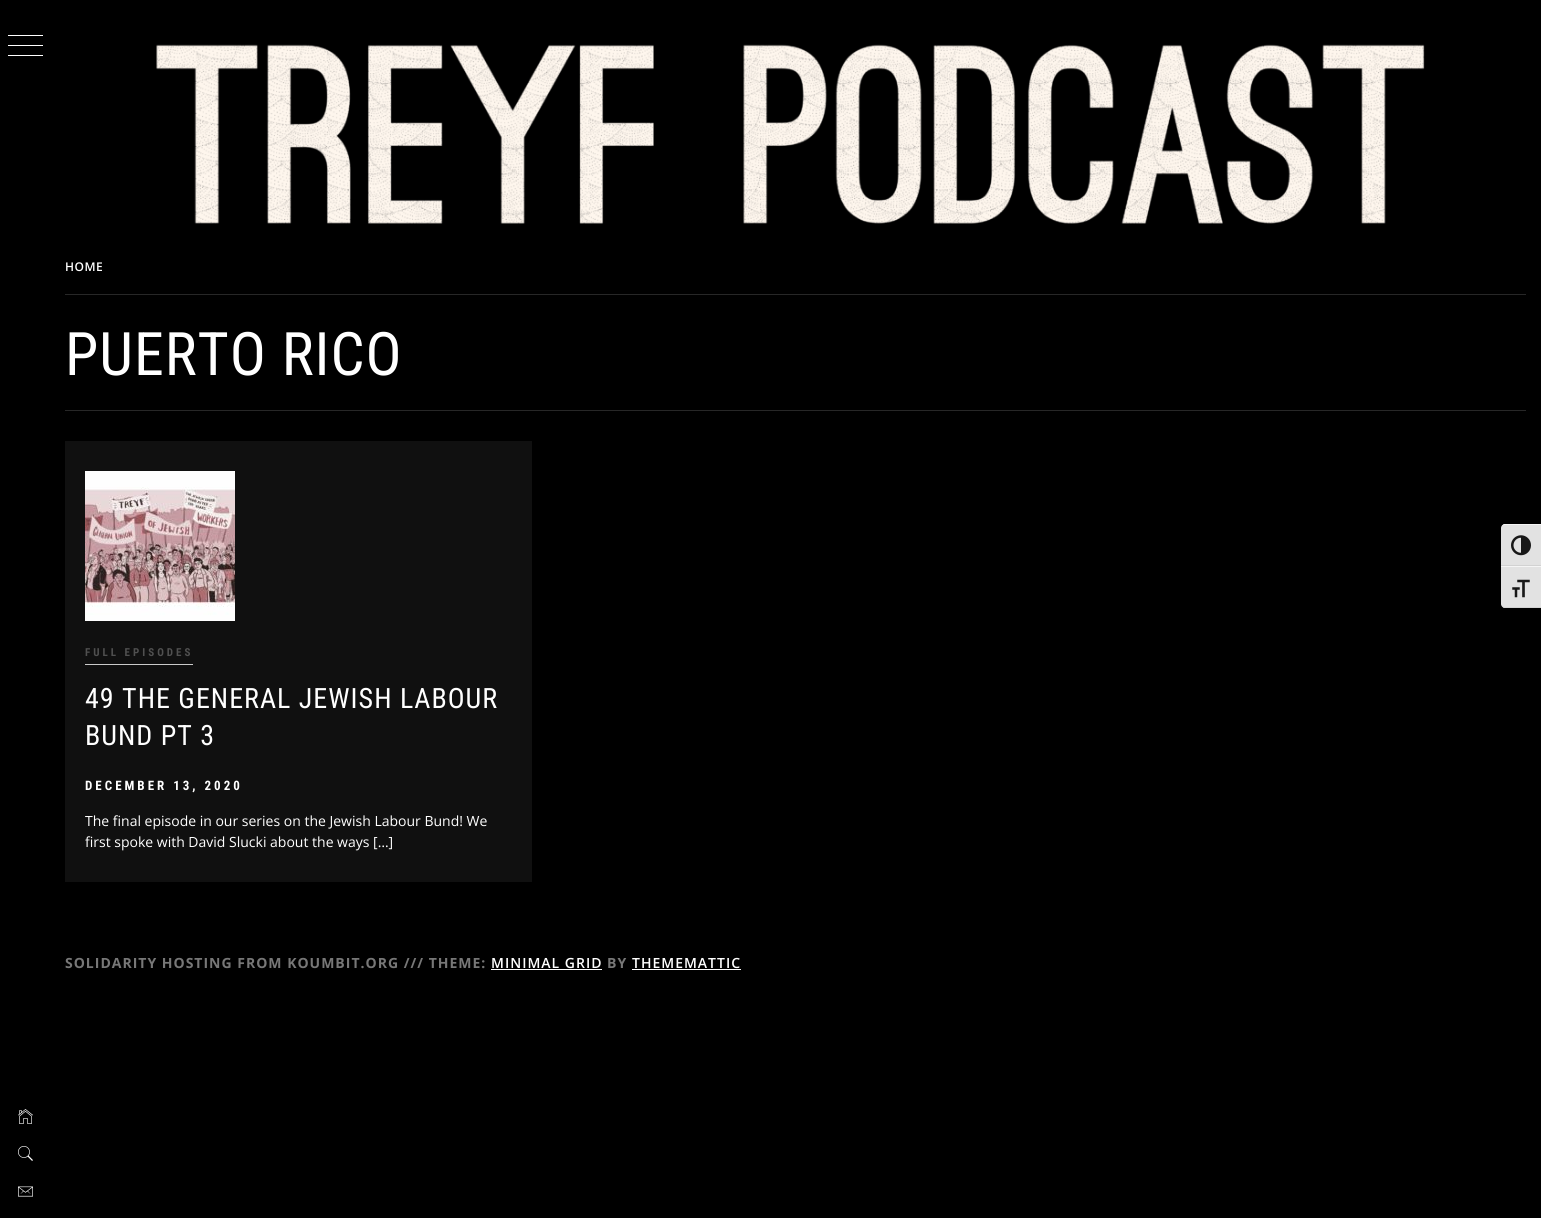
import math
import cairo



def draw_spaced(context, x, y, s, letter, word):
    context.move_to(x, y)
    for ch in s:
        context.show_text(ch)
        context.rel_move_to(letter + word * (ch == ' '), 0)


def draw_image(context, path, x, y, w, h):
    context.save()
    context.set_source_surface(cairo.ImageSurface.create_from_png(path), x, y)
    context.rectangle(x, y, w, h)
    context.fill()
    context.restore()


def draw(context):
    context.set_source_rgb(0, 0, 0)
    context.paint()
    context.set_source_rgb(1, 1, 1)
    context.rectangle(8, 35, 35, 1)
    context.fill()
    context.rectangle(8, 45, 35, 1)
    context.fill()
    context.rectangle(8, 55, 35, 1)
    context.fill()
    draw_image(context, "images/1.png", 18, 1109, 15, 15)
    draw_image(context, "images/2.png", 18, 1146, 15, 15)
    draw_image(context, "images/3.png", 18, 1186, 15, 11)
    draw_image(context, "images/4.png", 156, 44, 1269, 180)
    context.set_source_rgb(39 / 255, 39 / 255, 39 / 255)
    context.rectangle(65, 410, 1461, 1)
    context.fill()
    context.rectangle(65, 294, 1461, 1)
    context.fill()
    context.set_source_rgb(16 / 255, 16 / 255, 16 / 255)
    context.rectangle(65, 441, 467, 441)
    context.fill()
    draw_image(context, "images/5.png", 85, 471, 150, 150)
    context.set_source_rgb(202 / 255, 202 / 255, 202 / 255)
    context.rectangle(85, 664, 108, 1)
    context.fill()
    context.set_source_rgb(1, 1, 1)
    context.rectangle(491, 969, 111, 1)
    context.fill()
    context.rectangle(632, 969, 109, 1)
    context.fill()
    context.set_source_rgb(226 / 255, 226 / 255, 226 / 255)
    context.new_path()
    context.move_to(1505, 524)
    context.line_to(1541, 524)
    context.line_to(1541, 566)
    context.line_to(1501, 566)
    context.line_to(1501, 528)
    context.curve_to(1501, 526, 1503, 524, 1505, 524)
    context.close_path()
    context.fill()
    context.set_source_rgb(245 / 255, 245 / 255, 245 / 255)
    context.new_path()
    context.move_to(1505, 525)
    context.line_to(1541, 525)
    context.line_to(1541, 524)
    context.line_to(1505, 524)
    context.curve_to(1503, 524, 1501, 526, 1501, 528)
    context.curve_to(1501, 526, 1503, 525, 1505, 525)
    context.close_path()
    context.fill()
    context.set_source_rgb(210 / 255, 210 / 255, 210 / 255)
    context.rectangle(1501, 565, 40, 1)
    context.fill()
    draw_image(context, "images/6.png", 1511, 535, 20, 21)
    context.set_source_rgb(226 / 255, 226 / 255, 226 / 255)
    context.new_path()
    context.move_to(1501, 566)
    context.line_to(1541, 566)
    context.line_to(1541, 608)
    context.line_to(1505, 608)
    context.curve_to(1503, 608, 1501, 606, 1501, 604)
    context.close_path()
    context.fill()
    context.set_source_rgb(245 / 255, 245 / 255, 245 / 255)
    context.rectangle(1501, 566, 40, 1)
    context.fill()
    context.set_source_rgb(210 / 255, 210 / 255, 210 / 255)
    context.new_path()
    context.move_to(1541, 608)
    context.line_to(1541, 607)
    context.line_to(1505, 607)
    context.curve_to(1503, 607, 1501, 606, 1501, 604)
    context.curve_to(1501, 606, 1503, 608, 1505, 608)
    context.close_path()
    context.fill()
    draw_image(context, "images/7.png", 1512, 579, 18, 19)
    context.select_font_face("Open Sans SemiBold")
    context.set_font_size(12)
    context.set_source_rgb(1, 1, 1)
    draw_spaced(context, 65, 271, "HOME", 0.5, 0)
    context.select_font_face("Roboto Condensed")
    context.set_font_size(60)
    draw_spaced(context, 65, 375, "PUERTO RICO", 1, 0)
    context.select_font_face("Roboto Condensed", cairo.FontSlant.NORMAL, cairo.FontWeight.BOLD)
    context.set_font_size(11)
    context.set_source_rgb(80 / 255, 80 / 255, 80 / 255)
    draw_spaced(context, 85, 656, "FULL EPISODES", 3, 0)
    context.select_font_face("Roboto Condensed")
    context.set_font_size(28)
    context.set_source_rgb(1, 1, 1)
    draw_spaced(context, 85, 708, "49 THE GENERAL JEWISH LABOUR", 1, 0)
    draw_spaced(context, 85, 745, "BUND PT 3", 1, 0)
    context.select_font_face("Roboto Condensed", cairo.FontSlant.NORMAL, cairo.FontWeight.BOLD)
    context.set_font_size(13)
    draw_spaced(context, 85, 790, "DECEMBER 13, 2020", 3, 0)
    context.select_font_face("Open Sans")
    context.set_font_size(14)
    context.move_to(85, 826)
    context.show_text("The final episode in our series on the Jewish Labour Bund! We")
    context.move_to(85, 847)
    context.show_text("first spoke with David Slucki about the ways […]")
    context.select_font_face("Open Sans", cairo.FontSlant.NORMAL, cairo.FontWeight.BOLD)
    context.set_source_rgb(119 / 255, 119 / 255, 119 / 255)
    draw_spaced(context, 65, 968, "SOLIDARITY HOSTING FROM KOUMBIT.ORG /// THEME:", 1, 0)
    context.select_font_face("Open Sans SemiBold")
    context.set_source_rgb(1, 1, 1)
    draw_spaced(context, 491, 968, "MINIMAL GRID", 1, 0)
    context.select_font_face("Open Sans", cairo.FontSlant.NORMAL, cairo.FontWeight.BOLD)
    context.set_source_rgb(119 / 255, 119 / 255, 119 / 255)
    draw_spaced(context, 607, 968, "BY", 1, 0)
    context.select_font_face("Open Sans SemiBold")
    context.set_source_rgb(1, 1, 1)
    draw_spaced(context, 632, 968, "THEMEMATTIC", 1, 0)


surface = cairo.ImageSurface(cairo.Format.RGB24, 1541, 1218)
context = cairo.Context(surface)
options = cairo.FontOptions()
options.set_hint_metrics(cairo.HintMetrics.OFF)
options.set_hint_style(cairo.HintStyle.NONE)
context.set_font_options(options)
context.set_miter_limit(4)
draw(context)
surface.write_to_png("out.png")
